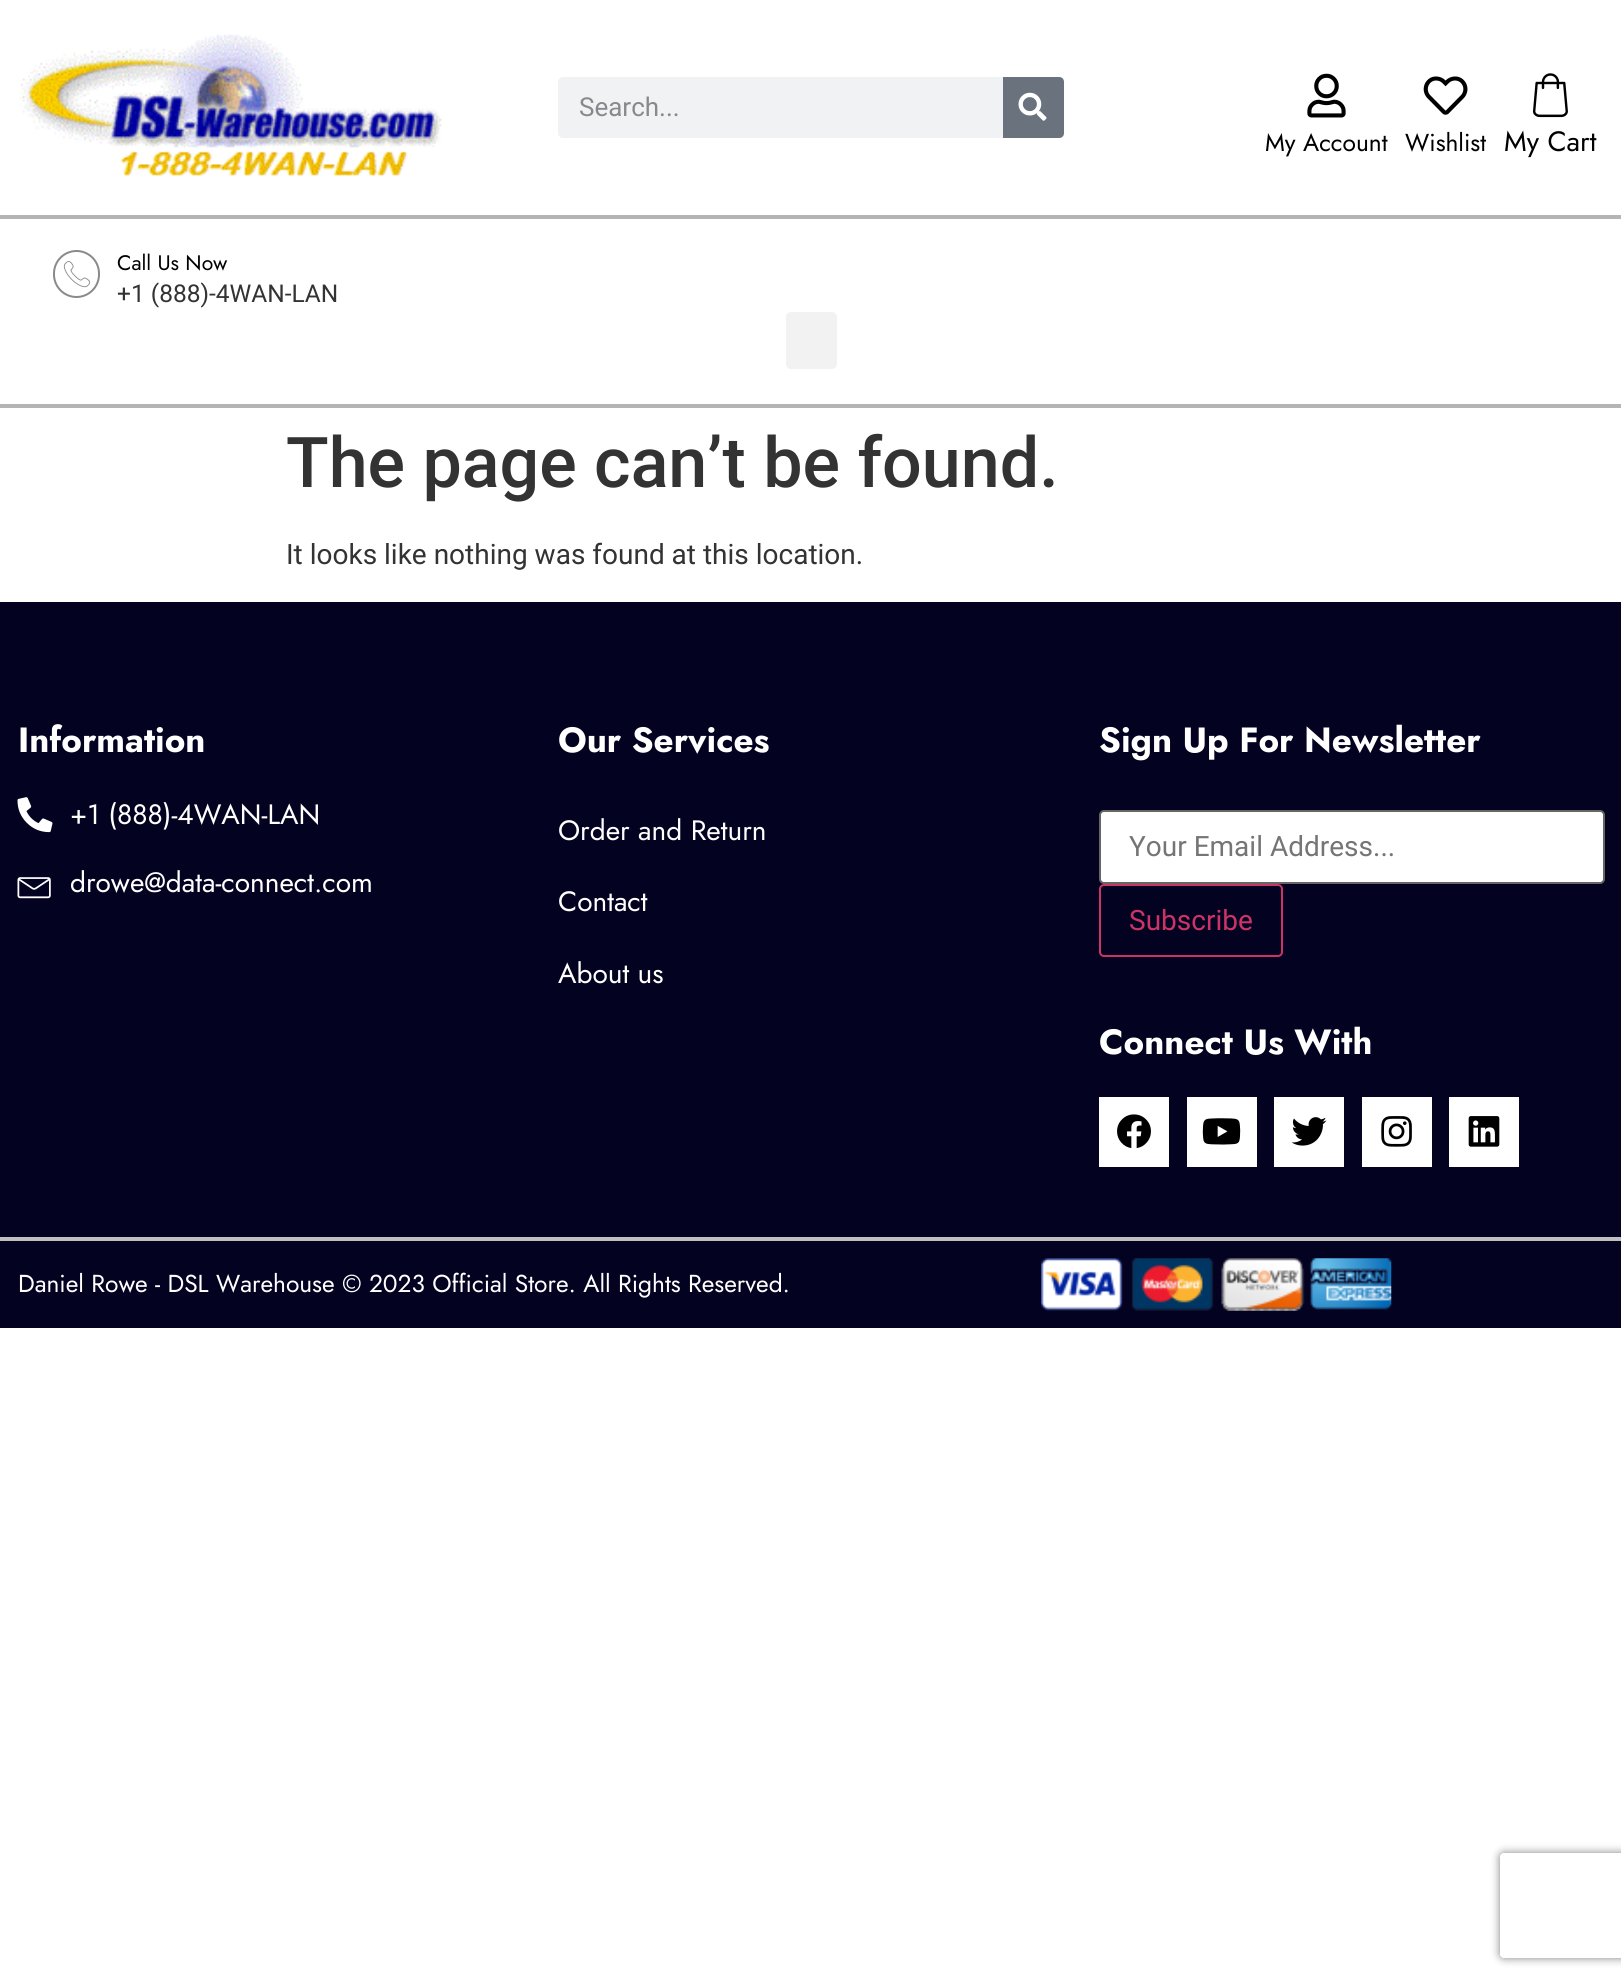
import math
import cairo



def rounded_rect(context, x, y, w, h, r):
    context.new_sub_path()
    for i, (u, v) in enumerate([(x + w - r, y + h - r), (x + r, y + h - r), (x + r, y + r), (x + w - r, y + r)]):
        context.arc(u, v, r, i * math.pi / 2, (i + 1) * math.pi / 2)
    context.close_path()


def draw_shadow(context, x, y, w, h, r, blur, alpha):
    context.push_group_with_content(cairo.Content.ALPHA)
    context.set_operator(cairo.Operator.SOURCE)
    for i in range(15, -16, -2):
        e = blur * i / 6
        if min(w, h) + 2 * e > 0:
            context.set_source_rgba(0, 0, 0, alpha * math.erfc((i - 1) / 8.5) / 2)
            rounded_rect(context, x - e, y - e, w + 2 * e, h + 2 * e, max(0, min(r + e + blur * .6, min(w, h) / 2 + e)))
            context.fill()
    context.mask(context.pop_group())


def draw_image(context, path, x, y, w, h):
    context.save()
    context.set_source_surface(cairo.ImageSurface.create_from_png(path), x, y)
    context.rectangle(x, y, w, h)
    context.fill()
    context.restore()


def draw(context):
    context.set_source_rgb(1, 1, 1)
    context.paint()
    draw_image(context, "images/1.png", 19, 34, 423, 142)
    context.set_source_rgb(241 / 255, 242 / 255, 243 / 255)
    rounded_rect(context, 558, 77, 506, 61, 5)
    context.fill()
    context.set_source_rgb(105 / 255, 114 / 255, 125 / 255)
    context.new_path()
    context.move_to(1003, 77)
    context.line_to(1059, 77)
    context.curve_to(1062, 77, 1064, 79, 1064, 82)
    context.line_to(1064, 133)
    context.curve_to(1064, 136, 1062, 138, 1059, 138)
    context.line_to(1003, 138)
    context.close_path()
    context.fill()
    draw_image(context, "images/2.png", 1018, 92, 29, 29)
    draw_image(context, "images/3.png", 1307, 73, 39, 45)
    draw_image(context, "images/4.png", 1423, 76, 45, 39)
    draw_image(context, "images/5.png", 1532, 73, 36, 45)
    context.set_source_rgb(180 / 255, 180 / 255, 180 / 255)
    context.rectangle(0, 215, 1621, 4)
    context.fill()
    context.rectangle(0, 404, 1621, 4)
    context.fill()
    rounded_rect(context, 54, 251, 45, 46, 22.5)
    context.set_source_rgb(138 / 255, 138 / 255, 138 / 255)
    context.stroke()
    draw_image(context, "images/6.png", 63, 261, 28, 27)
    context.set_source_rgb(242 / 255, 242 / 255, 242 / 255)
    rounded_rect(context, 786, 312, 51, 57, 5)
    context.fill()
    context.set_source_rgb(4 / 255, 2 / 255, 33 / 255)
    context.rectangle(0, 602, 1621, 635)
    context.fill()
    draw_image(context, "images/7.png", 17, 797, 36, 36)
    draw_image(context, "images/8.png", 17, 877, 34, 22)
    context.set_source_rgb(1, 1, 1)
    rounded_rect(context, 1100, 811, 504, 72, 4)
    context.fill_preserve()
    context.set_source_rgb(102 / 255, 102 / 255, 102 / 255)
    context.stroke()
    rounded_rect(context, 1100, 885, 182, 71, 4)
    context.set_source_rgb(204 / 255, 51 / 255, 102 / 255)
    context.stroke()
    context.set_source_rgb(1, 1, 1)
    context.rectangle(1099, 1097, 70, 70)
    context.fill()
    draw_image(context, "images/9.png", 1117, 1114, 34, 35)
    context.rectangle(1187, 1097, 70, 70)
    context.fill()
    draw_image(context, "images/10.png", 1202, 1118, 39, 27)
    context.rectangle(1274, 1097, 70, 70)
    context.fill()
    draw_image(context, "images/11.png", 1291, 1117, 36, 29)
    context.rectangle(1362, 1097, 70, 70)
    context.fill()
    draw_image(context, "images/12.png", 1381, 1116, 31, 31)
    context.rectangle(1449, 1097, 70, 70)
    context.fill()
    draw_image(context, "images/13.png", 1468, 1116, 32, 31)
    context.set_source_rgb(4 / 255, 2 / 255, 33 / 255)
    context.rectangle(0, 1241, 1621, 87)
    context.fill()
    context.set_source_rgb(192 / 255, 190 / 255, 190 / 255)
    context.rectangle(0, 1237, 1621, 4)
    context.fill()
    draw_image(context, "images/14.png", 1041, 1258, 351, 53)
    context.save()
    context.set_fill_rule(cairo.FillRule.EVEN_ODD)
    context.new_path()
    context.move_to(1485, 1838)
    context.line_to(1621, 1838)
    context.line_to(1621, 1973)
    context.line_to(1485, 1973)
    context.close_path()
    context.move_to(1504, 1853)
    context.line_to(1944, 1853)
    context.curve_to(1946, 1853, 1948, 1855, 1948, 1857)
    context.line_to(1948, 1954)
    context.curve_to(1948, 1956, 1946, 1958, 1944, 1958)
    context.line_to(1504, 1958)
    context.curve_to(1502, 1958, 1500, 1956, 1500, 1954)
    context.line_to(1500, 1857)
    context.curve_to(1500, 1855, 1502, 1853, 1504, 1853)
    context.close_path()
    context.clip()
    context.set_source_rgb(128 / 255, 128 / 255, 128 / 255)
    draw_shadow(context, 1500, 1853, 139, 105, 4, 4.5, 1)
    context.restore()
    context.select_font_face("Roboto")
    context.set_font_size(26)
    context.set_source_rgb(134 / 255, 138 / 255, 142 / 255)
    context.move_to(579, 116)
    context.show_text("Search...")
    context.select_font_face("Jost")
    context.set_font_size(24.5)
    context.set_source_rgb(0, 0, 0)
    context.move_to(1265, 151)
    context.show_text("My Account")
    context.move_to(1405, 151)
    context.show_text("Wishlist")
    context.set_font_size(28)
    context.move_to(1504, 151)
    context.show_text("My Cart")
    context.set_font_size(21)
    context.move_to(117, 270)
    context.show_text("Call Us Now")
    context.select_font_face("Roboto")
    context.set_font_size(24.5)
    context.set_source_rgb(51 / 255, 51 / 255, 51 / 255)
    context.move_to(117, 302)
    context.show_text("+1 (888)-4WAN-LAN")
    context.select_font_face("Roboto Medium")
    context.set_font_size(70)
    context.move_to(286, 487)
    context.show_text("The page can’t be found.")
    context.select_font_face("Roboto")
    context.set_font_size(28)
    context.move_to(286, 564)
    context.show_text("It looks like nothing was found at this location.")
    context.select_font_face("Jost", cairo.FontSlant.NORMAL, cairo.FontWeight.BOLD)
    context.set_font_size(35)
    context.set_source_rgb(1, 1, 1)
    context.move_to(18, 752)
    context.show_text("Information")
    context.select_font_face("Jost")
    context.set_font_size(28)
    context.move_to(70, 824)
    context.show_text("+1 (888)-4WAN-LAN")
    context.move_to(70, 892)
    context.show_text("drowe@data-connect.com")
    context.select_font_face("Jost", cairo.FontSlant.NORMAL, cairo.FontWeight.BOLD)
    context.set_font_size(35)
    context.move_to(558, 752)
    context.show_text("Our Services")
    context.select_font_face("Jost")
    context.set_font_size(28)
    context.move_to(558, 840)
    context.show_text("Order and Return")
    context.move_to(558, 911)
    context.show_text("Contact")
    context.move_to(558, 983)
    context.show_text("About us")
    context.select_font_face("Jost", cairo.FontSlant.NORMAL, cairo.FontWeight.BOLD)
    context.set_font_size(35)
    context.move_to(1099, 752)
    context.show_text("Sign Up For Newsletter")
    context.select_font_face("Roboto")
    context.set_font_size(28)
    context.set_source_rgb(117 / 255, 117 / 255, 117 / 255)
    context.move_to(1129, 856)
    context.show_text("Your Email Address...")
    context.set_source_rgb(204 / 255, 51 / 255, 102 / 255)
    context.move_to(1129, 930)
    context.show_text("Subscribe")
    context.select_font_face("Jost", cairo.FontSlant.NORMAL, cairo.FontWeight.BOLD)
    context.set_font_size(35)
    context.set_source_rgb(1, 1, 1)
    context.move_to(1099, 1054)
    context.show_text("Connect Us With")
    context.select_font_face("Jost")
    context.set_font_size(24.5)
    context.move_to(18, 1292)
    context.show_text("Daniel Rowe - DSL Warehouse © 2023 Official Store. All Rights Reserved.")


surface = cairo.ImageSurface(cairo.Format.RGB24, 1621, 1982)
context = cairo.Context(surface)
options = cairo.FontOptions()
options.set_hint_metrics(cairo.HintMetrics.OFF)
options.set_hint_style(cairo.HintStyle.NONE)
context.set_font_options(options)
context.set_miter_limit(4)
draw(context)
surface.write_to_png("out.png")
